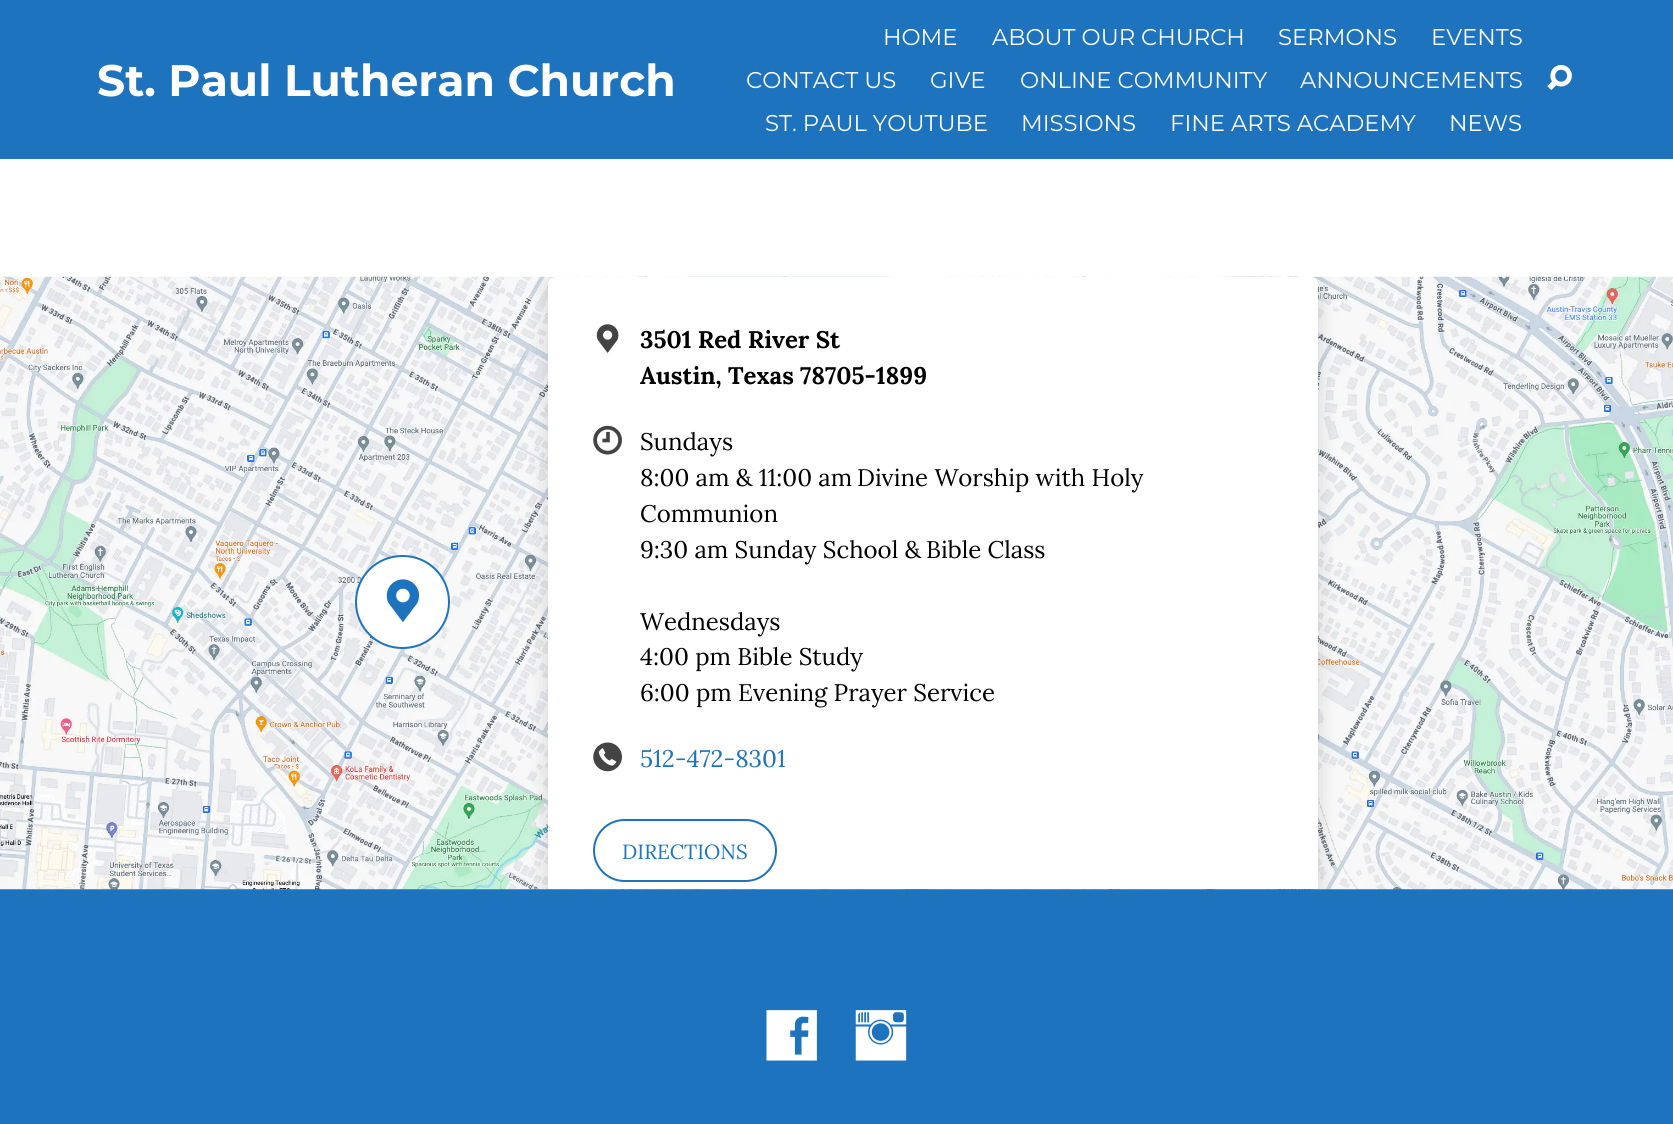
import math
import cairo



def rounded_rect(context, x, y, w, h, r):
    context.new_sub_path()
    for i, (u, v) in enumerate([(x + w - r, y + h - r), (x + r, y + h - r), (x + r, y + r), (x + w - r, y + r)]):
        context.arc(u, v, r, i * math.pi / 2, (i + 1) * math.pi / 2)
    context.close_path()


def draw_shadow(context, x, y, w, h, r, blur, alpha):
    context.push_group_with_content(cairo.Content.ALPHA)
    context.set_operator(cairo.Operator.SOURCE)
    for i in range(15, -16, -2):
        e = blur * i / 6
        if min(w, h) + 2 * e > 0:
            context.set_source_rgba(0, 0, 0, alpha * math.erfc((i - 1) / 8.5) / 2)
            rounded_rect(context, x - e, y - e, w + 2 * e, h + 2 * e, max(0, min(r + e + blur * .6, min(w, h) / 2 + e)))
            context.fill()
    context.mask(context.pop_group())


def draw_image(context, path, x, y, w, h):
    context.save()
    context.set_source_surface(cairo.ImageSurface.create_from_png(path), x, y)
    context.rectangle(x, y, w, h)
    context.fill()
    context.restore()


def draw(context):
    context.set_source_rgb(1, 1, 1)
    context.paint()
    context.set_source_rgb(30 / 255, 115 / 255, 190 / 255)
    context.rectangle(0, 0, 1673, 159)
    context.fill()
    draw_image(context, "images/1.png", 1547, 64, 25, 26)
    context.rectangle(0, 889, 1673, 235)
    context.fill()
    draw_image(context, "images/2.png", 0, 276, 1673, 614)
    context.set_source_rgb(1, 1, 1)
    rounded_rect(context, 356, 556, 93, 92, 46)
    context.fill_preserve()
    context.set_source_rgb(30 / 255, 115 / 255, 190 / 255)
    context.stroke()
    draw_image(context, "images/3.png", 386, 579, 34, 44)
    context.save()
    context.rectangle(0, 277, 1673, 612)
    context.clip()
    context.set_source_rgb(0, 0, 0)
    draw_shadow(context, 548, 280, 770, 649, 7, 10.5, 0.15)
    context.restore()
    context.set_source_rgb(1, 1, 1)
    context.new_path()
    context.move_to(555, 277)
    context.line_to(1311, 277)
    context.curve_to(1315, 277, 1318, 280, 1318, 284)
    context.line_to(1318, 889)
    context.line_to(548, 889)
    context.line_to(548, 284)
    context.curve_to(548, 280, 551, 277, 555, 277)
    context.close_path()
    context.fill()
    draw_image(context, "images/4.png", 596, 324, 23, 29)
    draw_image(context, "images/5.png", 593, 425, 29, 30)
    draw_image(context, "images/6.png", 593, 742, 29, 30)
    rounded_rect(context, 594, 820, 182, 61, 30.5)
    context.set_source_rgb(30 / 255, 115 / 255, 190 / 255)
    context.stroke()
    draw_image(context, "images/7.png", 766, 1010, 51, 51)
    draw_image(context, "images/8.png", 855, 1010, 52, 51)
    context.select_font_face("Montserrat", cairo.FontSlant.NORMAL, cairo.FontWeight.BOLD)
    context.set_font_size(44.1)
    context.set_source_rgb(1, 1, 1)
    context.move_to(97, 96)
    context.show_text("St. Paul Lutheran Church")
    context.select_font_face("Montserrat")
    context.set_font_size(22.75)
    context.move_to(883, 45)
    context.show_text("HOME")
    context.move_to(992, 45)
    context.show_text("ABOUT OUR CHURCH")
    context.move_to(1278, 45)
    context.show_text("SERMONS")
    context.move_to(1431, 45)
    context.show_text("EVENTS")
    context.move_to(746, 88)
    context.show_text("CONTACT US")
    context.move_to(930, 88)
    context.show_text("GIVE")
    context.move_to(1020, 88)
    context.show_text("ONLINE COMMUNITY")
    context.move_to(1300, 88)
    context.show_text("ANNOUNCEMENTS")
    context.move_to(765, 131)
    context.show_text("ST. PAUL YOUTUBE")
    context.move_to(1021, 131)
    context.show_text("MISSIONS")
    context.move_to(1170, 131)
    context.show_text("FINE ARTS ACADEMY")
    context.move_to(1449, 131)
    context.show_text("NEWS")
    context.select_font_face("Lora", cairo.FontSlant.NORMAL, cairo.FontWeight.BOLD)
    context.set_font_size(24)
    context.set_source_rgb(0, 0, 0)
    context.move_to(640, 348)
    context.show_text("3501 Red River St")
    context.move_to(640, 384)
    context.show_text("Austin, Texas 78705-1899")
    context.select_font_face("Lora")
    context.move_to(640, 450)
    context.show_text("Sundays")
    context.move_to(640, 486)
    context.show_text("8:00 am & 11:00 am")
    context.move_to(857, 486)
    context.show_text("Divine Worship with Holy")
    context.move_to(640, 522)
    context.show_text("Communion")
    context.move_to(640, 558)
    context.show_text("9:30 am Sunday School &")
    context.move_to(926, 558)
    context.show_text("Bible Class")
    context.move_to(640, 630)
    context.show_text("Wednesdays")
    context.move_to(640, 665)
    context.show_text("4:00 pm Bible Study")
    context.move_to(640, 701)
    context.show_text("6:00 pm Evening Prayer Service")
    context.set_source_rgb(30 / 255, 115 / 255, 190 / 255)
    context.move_to(640, 767)
    context.show_text("512-472-8301")
    context.set_font_size(20.5)
    context.move_to(622, 859)
    context.show_text("DIRECTIONS")


surface = cairo.ImageSurface(cairo.Format.RGB24, 1673, 1124)
context = cairo.Context(surface)
options = cairo.FontOptions()
options.set_hint_metrics(cairo.HintMetrics.OFF)
options.set_hint_style(cairo.HintStyle.NONE)
context.set_font_options(options)
context.set_miter_limit(4)
draw(context)
surface.write_to_png("out.png")
